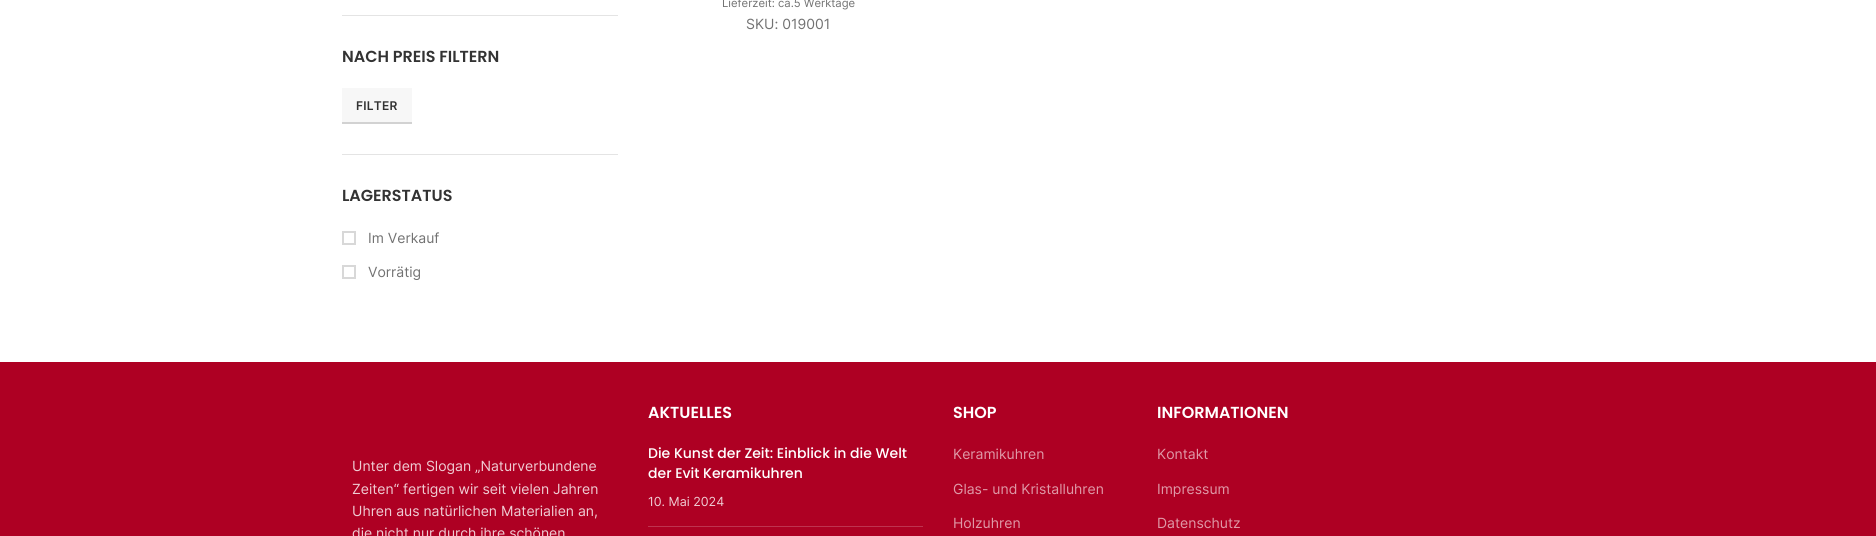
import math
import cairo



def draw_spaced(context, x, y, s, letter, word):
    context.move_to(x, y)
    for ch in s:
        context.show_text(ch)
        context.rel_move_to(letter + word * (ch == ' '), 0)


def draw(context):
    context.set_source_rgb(1, 1, 1)
    context.paint()
    context.set_source_rgb(228 / 255, 228 / 255, 228 / 255)
    context.rectangle(342, 15, 276, 1)
    context.fill()
    context.rectangle(342, 154, 276, 1)
    context.fill()
    context.set_source_rgb(247 / 255, 247 / 255, 247 / 255)
    context.rectangle(342, 88, 70, 34)
    context.fill()
    context.set_source_rgb(210 / 255, 210 / 255, 210 / 255)
    context.rectangle(342, 122, 70, 2)
    context.fill()
    context.rectangle(343, 232, 12, 12)
    context.set_source_rgb(216 / 255, 216 / 255, 216 / 255)
    context.stroke()
    context.rectangle(343, 266, 12, 12)
    context.stroke()
    context.set_source_rgb(174 / 255, 0, 35 / 255)
    context.rectangle(0, 362, 1876, 174)
    context.fill()
    context.set_source_rgb(190 / 255, 51 / 255, 79 / 255)
    context.rectangle(648, 526, 275, 1)
    context.fill()
    context.select_font_face("Inter")
    context.set_font_size(11.25)
    context.set_source_rgb(114 / 255, 114 / 255, 114 / 255)
    context.move_to(722, 7)
    context.show_text("Lieferzeit: ca.5 Werktage")
    context.set_font_size(14)
    context.move_to(746, 29)
    context.show_text("SKU: 019001")
    context.select_font_face("Poppins SemiBold")
    context.set_font_size(16)
    context.set_source_rgb(51 / 255, 51 / 255, 51 / 255)
    context.move_to(342, 62)
    context.show_text("NACH PREIS FILTERN")
    context.select_font_face("Inter SemiBold")
    context.set_font_size(12)
    draw_spaced(context, 356, 110, "FILTER", 0.25, 0)
    context.select_font_face("Poppins SemiBold")
    context.set_font_size(16)
    context.move_to(342, 201)
    context.show_text("LAGERSTATUS")
    context.select_font_face("Inter")
    context.set_font_size(14)
    context.set_source_rgb(114 / 255, 114 / 255, 114 / 255)
    context.move_to(368, 243)
    context.show_text("Im Verkauf")
    context.move_to(368, 277)
    context.show_text("Vorrätig")
    context.set_source_rgb(239 / 255, 204 / 255, 211 / 255)
    context.move_to(352, 471)
    context.show_text("Unter dem Slogan „Naturverbundene")
    context.move_to(352, 494)
    context.show_text("Zeiten“ fertigen wir seit vielen Jahren")
    context.move_to(352, 516)
    context.show_text("Uhren aus natürlichen Materialien an,")
    context.move_to(352, 538)
    context.show_text("die nicht nur durch ihre schönen")
    context.select_font_face("Poppins SemiBold")
    context.set_font_size(16)
    context.set_source_rgb(1, 1, 1)
    context.move_to(648, 418)
    context.show_text("AKTUELLES")
    context.select_font_face("Poppins Medium")
    context.set_font_size(14)
    context.move_to(648, 458)
    context.show_text("Die Kunst der Zeit: Einblick in die Welt")
    context.move_to(648, 478)
    context.show_text("der Evit Keramikuhren")
    context.select_font_face("Inter")
    context.set_font_size(12.5)
    context.set_source_rgb(239 / 255, 204 / 255, 211 / 255)
    context.move_to(648, 506)
    context.show_text("10. Mai 2024")
    context.select_font_face("Poppins SemiBold")
    context.set_font_size(16)
    context.set_source_rgb(1, 1, 1)
    context.move_to(953, 418)
    context.show_text("SHOP")
    context.select_font_face("Inter")
    context.set_font_size(14)
    context.set_source_rgb(223 / 255, 153 / 255, 167 / 255)
    context.move_to(953, 459)
    context.show_text("Keramikuhren")
    context.move_to(953, 494)
    context.show_text("Glas- und Kristalluhren")
    context.move_to(953, 528)
    context.show_text("Holzuhren")
    context.select_font_face("Poppins SemiBold")
    context.set_font_size(16)
    context.set_source_rgb(1, 1, 1)
    context.move_to(1157, 418)
    context.show_text("INFORMATIONEN")
    context.select_font_face("Inter")
    context.set_font_size(14)
    context.set_source_rgb(223 / 255, 153 / 255, 167 / 255)
    context.move_to(1157, 459)
    context.show_text("Kontakt")
    context.move_to(1157, 494)
    context.show_text("Impressum")
    context.move_to(1157, 528)
    context.show_text("Datenschutz")


surface = cairo.ImageSurface(cairo.Format.RGB24, 1876, 536)
context = cairo.Context(surface)
options = cairo.FontOptions()
options.set_hint_metrics(cairo.HintMetrics.OFF)
options.set_hint_style(cairo.HintStyle.NONE)
context.set_font_options(options)
context.set_miter_limit(4)
draw(context)
surface.write_to_png("out.png")
